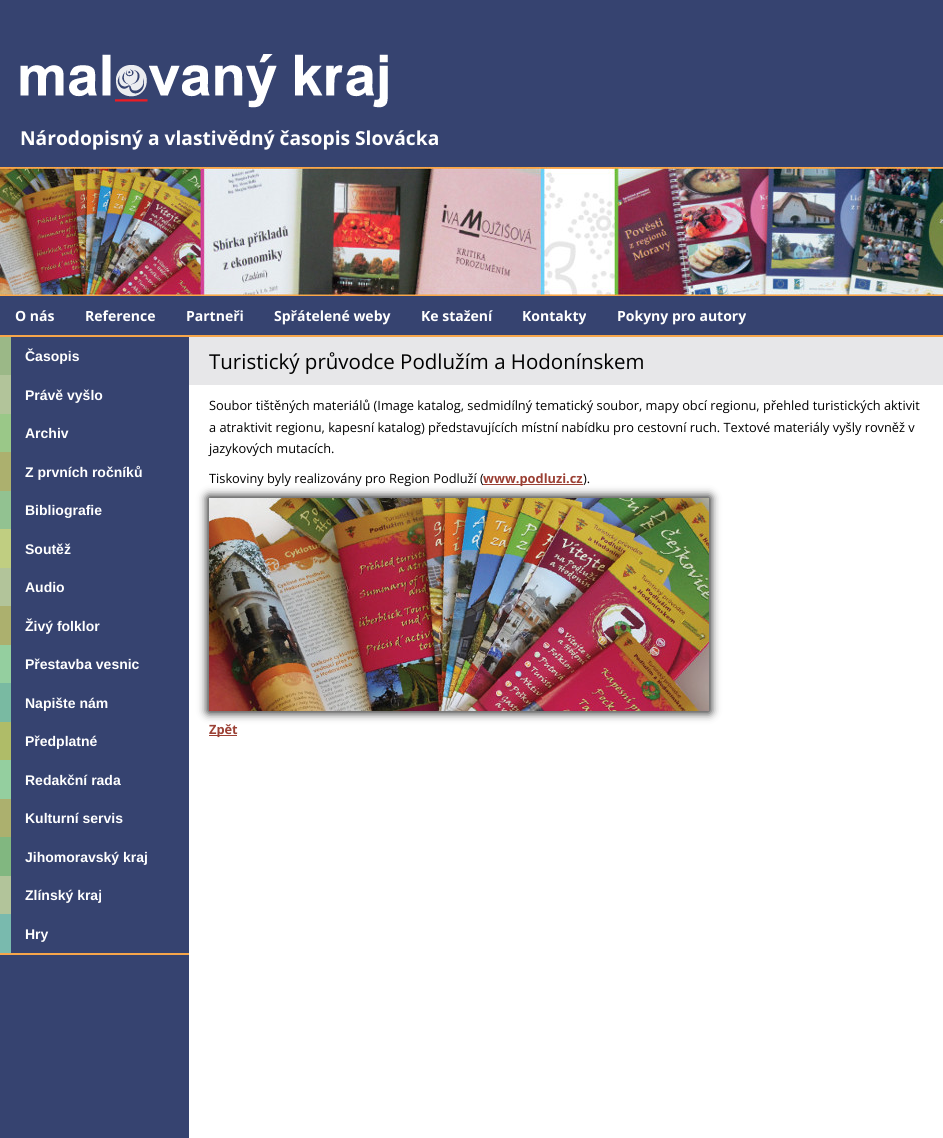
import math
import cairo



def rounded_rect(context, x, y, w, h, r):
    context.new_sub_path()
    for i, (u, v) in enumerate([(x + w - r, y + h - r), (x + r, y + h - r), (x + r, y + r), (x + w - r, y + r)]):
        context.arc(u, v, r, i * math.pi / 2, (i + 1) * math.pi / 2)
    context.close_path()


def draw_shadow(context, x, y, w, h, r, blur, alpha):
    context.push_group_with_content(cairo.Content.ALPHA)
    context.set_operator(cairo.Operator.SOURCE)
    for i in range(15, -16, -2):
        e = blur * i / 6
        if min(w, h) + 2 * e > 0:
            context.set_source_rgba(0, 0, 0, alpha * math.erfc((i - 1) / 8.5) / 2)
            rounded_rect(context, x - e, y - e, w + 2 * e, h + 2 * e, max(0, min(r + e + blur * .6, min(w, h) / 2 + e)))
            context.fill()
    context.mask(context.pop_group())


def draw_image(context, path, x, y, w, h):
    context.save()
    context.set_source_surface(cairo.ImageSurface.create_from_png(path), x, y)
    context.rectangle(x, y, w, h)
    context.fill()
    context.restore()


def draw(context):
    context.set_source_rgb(54 / 255, 67 / 255, 112 / 255)
    context.paint()
    draw_image(context, "images/1.png", 20, 54, 368, 54)
    draw_image(context, "images/2.png", 0, 167, 943, 129)
    context.set_source_rgb(247 / 255, 166 / 255, 74 / 255)
    context.rectangle(0, 335, 943, 2)
    context.fill()
    context.rectangle(0, 953, 189, 2)
    context.fill()
    context.set_source_rgb(155 / 255, 184 / 255, 135 / 255)
    context.rectangle(0, 337, 11, 38)
    context.fill()
    context.set_source_rgb(178 / 255, 196 / 255, 154 / 255)
    context.rectangle(0, 375, 11, 39)
    context.fill()
    context.set_source_rgb(154 / 255, 200 / 255, 136 / 255)
    context.rectangle(0, 414, 11, 38)
    context.fill()
    context.set_source_rgb(172 / 255, 176 / 255, 110 / 255)
    context.rectangle(0, 452, 11, 39)
    context.fill()
    context.set_source_rgb(146 / 255, 194 / 255, 145 / 255)
    context.rectangle(0, 491, 11, 38)
    context.fill()
    context.set_source_rgb(192 / 255, 206 / 255, 129 / 255)
    context.rectangle(0, 529, 11, 39)
    context.fill()
    context.set_source_rgb(178 / 255, 196 / 255, 154 / 255)
    context.rectangle(0, 568, 11, 38)
    context.fill()
    context.set_source_rgb(172 / 255, 176 / 255, 110 / 255)
    context.rectangle(0, 606, 11, 39)
    context.fill()
    context.set_source_rgb(148 / 255, 207 / 255, 159 / 255)
    context.rectangle(0, 645, 11, 38)
    context.fill()
    context.set_source_rgb(121 / 255, 186 / 255, 162 / 255)
    context.rectangle(0, 683, 11, 39)
    context.fill()
    context.set_source_rgb(175 / 255, 188 / 255, 104 / 255)
    context.rectangle(0, 722, 11, 38)
    context.fill()
    context.set_source_rgb(148 / 255, 207 / 255, 159 / 255)
    context.rectangle(0, 760, 11, 39)
    context.fill()
    context.set_source_rgb(172 / 255, 176 / 255, 110 / 255)
    context.rectangle(0, 799, 11, 38)
    context.fill()
    context.set_source_rgb(129 / 255, 183 / 255, 128 / 255)
    context.rectangle(0, 837, 11, 39)
    context.fill()
    context.set_source_rgb(178 / 255, 196 / 255, 154 / 255)
    context.rectangle(0, 876, 11, 38)
    context.fill()
    context.set_source_rgb(121 / 255, 186 / 255, 174 / 255)
    context.rectangle(0, 914, 11, 39)
    context.fill()
    context.set_source_rgb(1, 1, 1)
    context.rectangle(189, 385, 754, 753)
    context.fill()
    context.set_source_rgb(231 / 255, 231 / 255, 233 / 255)
    context.rectangle(189, 337, 754, 48)
    context.fill()
    context.set_source_rgb(155 / 255, 64 / 255, 52 / 255)
    context.rectangle(209, 735, 28, 1)
    context.fill()
    context.select_font_face("Open Sans", cairo.FontSlant.NORMAL, cairo.FontWeight.BOLD)
    context.set_font_size(19.2)
    context.set_source_rgb(1, 1, 1)
    context.move_to(20, 145)
    context.show_text("Národopisný a vlastivědný časopis Slovácka")
    context.set_font_size(14)
    context.move_to(15, 321)
    context.show_text("O nás")
    context.move_to(85, 321)
    context.show_text("Reference")
    context.move_to(186, 321)
    context.show_text("Partneři")
    context.move_to(274, 321)
    context.show_text("Spřátelené weby")
    context.move_to(421, 321)
    context.show_text("Ke stažení")
    context.move_to(522, 321)
    context.show_text("Kontakty")
    context.move_to(617, 321)
    context.show_text("Pokyny pro autory")
    context.select_font_face("Liberation Sans", cairo.FontSlant.NORMAL, cairo.FontWeight.BOLD)
    context.move_to(25, 361)
    context.show_text("Časopis")
    context.move_to(25, 400)
    context.show_text("Právě vyšlo")
    context.move_to(25, 438)
    context.show_text("Archiv")
    context.move_to(25, 477)
    context.show_text("Z prvních ročníků")
    context.move_to(25, 515)
    context.show_text("Bibliografie")
    context.move_to(25, 554)
    context.show_text("Soutěž")
    context.move_to(25, 592)
    context.show_text("Audio")
    context.move_to(25, 631)
    context.show_text("Živý folklor")
    context.move_to(25, 669)
    context.show_text("Přestavba vesnic")
    context.move_to(25, 708)
    context.show_text("Napište nám")
    context.move_to(25, 746)
    context.show_text("Předplatné")
    context.move_to(25, 785)
    context.show_text("Redakční rada")
    context.move_to(25, 823)
    context.show_text("Kulturní servis")
    context.move_to(25, 862)
    context.show_text("Jihomoravský kraj")
    context.move_to(25, 900)
    context.show_text("Zlínský kraj")
    context.move_to(25, 939)
    context.show_text("Hry")
    context.select_font_face("Open Sans")
    context.set_font_size(20.5)
    context.set_source_rgb(0, 0, 0)
    context.move_to(209, 369)
    context.show_text("Turistický průvodce Podlužím a Hodonínskem")
    context.set_font_size(12.8)
    context.move_to(209, 410)
    context.show_text("Soubor tištěných materiálů (Image katalog, sedmidílný tematický soubor, mapy obcí regionu, přehled turistických aktivit")
    context.move_to(209, 432)
    context.show_text("a atraktivit regionu, kapesní katalog) představujících místní nabídku pro cestovní ruch. Textové materiály vyšly rovněž v")
    context.move_to(209, 453)
    context.show_text("jazykových mutacích.")
    context.move_to(209, 483)
    context.show_text("Tiskoviny byly realizovány pro Region Podluží (")
    context.set_source_rgb(155 / 255, 64 / 255, 52 / 255)
    context.rectangle(483, 484, 100, 1)
    context.fill()
    context.select_font_face("Open Sans", cairo.FontSlant.NORMAL, cairo.FontWeight.BOLD)
    context.move_to(483, 483)
    context.show_text("www.podluzi.cz")
    context.select_font_face("Open Sans")
    context.set_source_rgb(0, 0, 0)
    context.move_to(583, 483)
    context.show_text(").")
    context.set_source_rgb(0, 0, 0)
    draw_shadow(context, 208, 497, 502, 215, 0, 5, 1)
    draw_image(context, "images/3.png", 209, 498, 500, 213)
    context.select_font_face("Open Sans", cairo.FontSlant.NORMAL, cairo.FontWeight.BOLD)
    context.set_source_rgb(155 / 255, 64 / 255, 52 / 255)
    context.move_to(209, 734)
    context.show_text("Zpět")


surface = cairo.ImageSurface(cairo.Format.RGB24, 943, 1138)
context = cairo.Context(surface)
options = cairo.FontOptions()
options.set_hint_metrics(cairo.HintMetrics.OFF)
options.set_hint_style(cairo.HintStyle.NONE)
context.set_font_options(options)
context.set_miter_limit(4)
draw(context)
surface.write_to_png("out.png")
